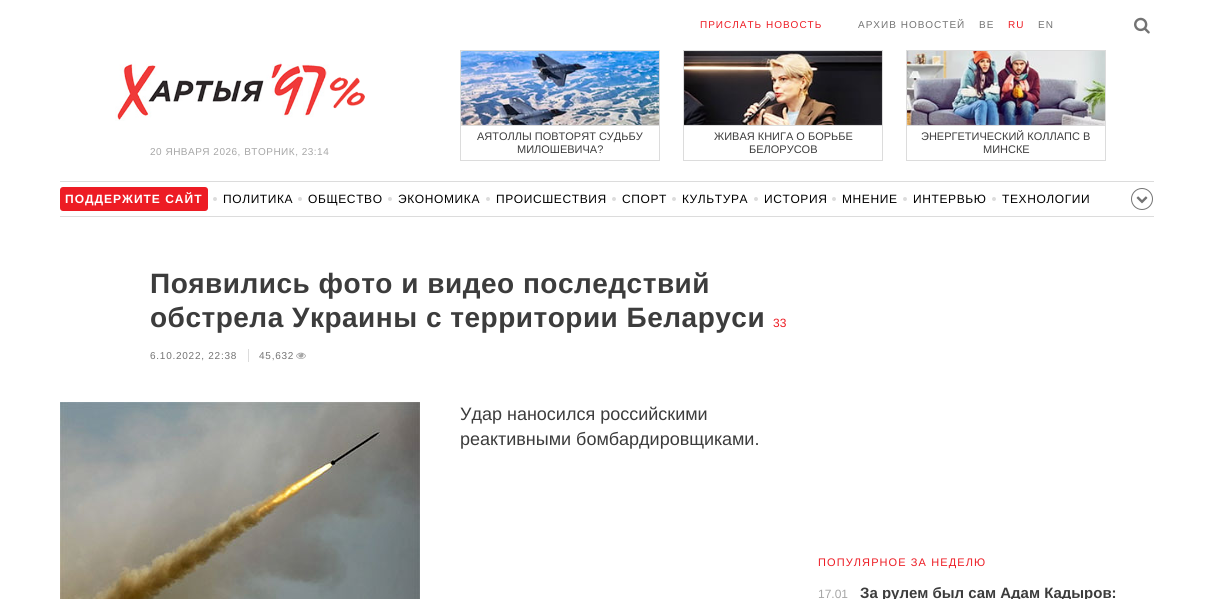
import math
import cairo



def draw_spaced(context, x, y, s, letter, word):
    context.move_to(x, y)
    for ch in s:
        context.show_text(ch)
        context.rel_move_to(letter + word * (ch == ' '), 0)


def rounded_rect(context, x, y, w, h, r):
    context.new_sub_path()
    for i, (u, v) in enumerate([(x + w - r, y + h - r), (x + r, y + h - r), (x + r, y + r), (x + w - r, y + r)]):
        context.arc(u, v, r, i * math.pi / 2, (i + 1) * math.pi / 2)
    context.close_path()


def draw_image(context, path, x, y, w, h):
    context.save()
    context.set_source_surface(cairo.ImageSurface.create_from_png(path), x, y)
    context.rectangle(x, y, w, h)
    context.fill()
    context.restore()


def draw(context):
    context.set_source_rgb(1, 1, 1)
    context.paint()
    draw_image(context, "images/1.png", 115, 60, 250, 61)
    draw_image(context, "images/2.png", 1134, 17, 16, 17)
    context.rectangle(460.5, 50.5, 199, 110)
    context.set_source_rgb(220 / 255, 220 / 255, 220 / 255)
    context.set_line_width(1)
    context.stroke()
    draw_image(context, "images/3.png", 461, 51, 198, 74)
    context.rectangle(461, 125, 198, 1)
    context.fill()
    context.rectangle(683.5, 50.5, 199, 110)
    context.stroke()
    draw_image(context, "images/4.png", 684, 51, 198, 74)
    context.rectangle(684, 125, 198, 1)
    context.fill()
    context.rectangle(906.5, 50.5, 199, 110)
    context.stroke()
    draw_image(context, "images/5.png", 907, 51, 198, 74)
    context.rectangle(907, 125, 198, 1)
    context.fill()
    context.rectangle(60, 181, 1094, 1)
    context.fill()
    context.rectangle(60, 216, 1094, 1)
    context.fill()
    context.set_source_rgb(237 / 255, 28 / 255, 36 / 255)
    rounded_rect(context, 60, 187, 148, 24, 3)
    context.fill()
    context.set_source_rgb(220 / 255, 220 / 255, 220 / 255)
    context.arc(215, 199, 2, 0, 2 * math.pi)
    context.fill()
    context.arc(300, 199, 2, 0, 2 * math.pi)
    context.fill()
    context.arc(390, 199, 2, 0, 2 * math.pi)
    context.fill()
    context.arc(488, 199, 2, 0, 2 * math.pi)
    context.fill()
    context.arc(614, 199, 2, 0, 2 * math.pi)
    context.fill()
    context.arc(674, 199, 2, 0, 2 * math.pi)
    context.fill()
    context.arc(756, 199, 2, 0, 2 * math.pi)
    context.fill()
    context.arc(834, 199, 2, 0, 2 * math.pi)
    context.fill()
    context.arc(905, 199, 2, 0, 2 * math.pi)
    context.fill()
    context.arc(994, 199, 2, 0, 2 * math.pi)
    context.fill()
    context.arc(1142, 199, 10.5, 0, 2 * math.pi)
    context.set_source_rgb(115 / 255, 115 / 255, 115 / 255)
    context.stroke()
    draw_image(context, "images/6.png", 1136, 196, 12, 8)
    context.set_source_rgb(220 / 255, 220 / 255, 220 / 255)
    context.rectangle(248, 349, 1, 13)
    context.fill()
    draw_image(context, "images/7.png", 296, 352, 10, 7)
    draw_image(context, "images/8.png", 60, 402, 360, 197)
    context.select_font_face("Liberation Sans")
    context.set_font_size(10)
    context.set_source_rgb(166 / 255, 166 / 255, 166 / 255)
    draw_spaced(context, 150, 155, "20 ЯНВАРЯ 2026, ВТОРНИК, 23:14", 0.5, 0)
    context.set_source_rgb(237 / 255, 28 / 255, 36 / 255)
    draw_spaced(context, 700, 28, "ПРИСЛАТЬ НОВОСТЬ", 1, 0)
    context.set_source_rgb(115 / 255, 115 / 255, 115 / 255)
    draw_spaced(context, 858, 28, "АРХИВ НОВОСТЕЙ", 1, 0)
    draw_spaced(context, 979, 28, "BE", 1, 0)
    context.set_source_rgb(237 / 255, 28 / 255, 36 / 255)
    draw_spaced(context, 1008, 28, "RU", 1, 0)
    context.set_source_rgb(115 / 255, 115 / 255, 115 / 255)
    draw_spaced(context, 1038, 28, "EN", 1, 0)
    context.set_font_size(11)
    context.set_source_rgb(60 / 255, 60 / 255, 60 / 255)
    context.move_to(477, 140)
    context.show_text("АЯТОЛЛЫ ПОВТОРЯТ СУДЬБУ")
    context.move_to(517, 153)
    context.show_text("МИЛОШЕВИЧА?")
    context.move_to(714, 140)
    context.show_text("ЖИВАЯ КНИГА О БОРЬБЕ")
    context.move_to(749, 153)
    context.show_text("БЕЛОРУСОВ")
    context.move_to(921, 140)
    context.show_text("ЭНЕРГЕТИЧЕСКИЙ КОЛЛАПС В")
    context.move_to(983, 153)
    context.show_text("МИНСКЕ")
    context.select_font_face("Liberation Sans", cairo.FontSlant.NORMAL, cairo.FontWeight.BOLD)
    context.set_font_size(12)
    context.set_source_rgb(1, 1, 1)
    draw_spaced(context, 65, 203, "ПОДДЕРЖИТЕ САЙТ", 1, 0)
    context.select_font_face("Liberation Sans")
    context.set_source_rgb(0, 0, 0)
    draw_spaced(context, 223, 203, "ПОЛИТИКА", 0.6, 0)
    draw_spaced(context, 308, 203, "ОБЩЕСТВО", 0.6, 0)
    draw_spaced(context, 398, 203, "ЭКОНОМИКА", 0.6, 0)
    draw_spaced(context, 496, 203, "ПРОИСШЕСТВИЯ", 0.6, 0)
    draw_spaced(context, 622, 203, "СПОРТ", 0.6, 0)
    draw_spaced(context, 682, 203, "КУЛЬТУРА", 0.6, 0)
    draw_spaced(context, 764, 203, "ИСТОРИЯ", 0.6, 0)
    draw_spaced(context, 842, 203, "МНЕНИЕ", 0.6, 0)
    draw_spaced(context, 913, 203, "ИНТЕРВЬЮ", 0.6, 0)
    draw_spaced(context, 1002, 203, "ТЕХНОЛОГИИ", 0.6, 0)
    context.select_font_face("Liberation Sans", cairo.FontSlant.NORMAL, cairo.FontWeight.BOLD)
    context.set_font_size(28)
    context.set_source_rgb(60 / 255, 60 / 255, 60 / 255)
    draw_spaced(context, 150, 293, "Появились фото и видео последствий", 0.5, 0)
    draw_spaced(context, 150, 327, "обстрела Украины с территории Беларуси", 0.5, 0)
    context.select_font_face("Liberation Sans")
    context.set_font_size(12)
    context.set_source_rgb(237 / 255, 28 / 255, 36 / 255)
    context.move_to(773, 327)
    context.show_text("33")
    context.set_font_size(10)
    context.set_source_rgb(115 / 255, 115 / 255, 115 / 255)
    draw_spaced(context, 150, 359, "6.10.2022, 22:38", 0.75, 0)
    draw_spaced(context, 259, 359, "45,632", 0.75, 0)
    context.set_font_size(18)
    context.set_source_rgb(60 / 255, 60 / 255, 60 / 255)
    context.move_to(460, 420)
    context.show_text("Удар наносился российскими")
    context.move_to(460, 445)
    context.show_text("реактивными бомбардировщиками.")
    context.set_font_size(11)
    context.set_source_rgb(237 / 255, 28 / 255, 36 / 255)
    draw_spaced(context, 818, 566, "ПОПУЛЯРНОЕ ЗА НЕДЕЛЮ", 1.1, 0)
    context.set_font_size(12)
    context.set_source_rgb(166 / 255, 166 / 255, 166 / 255)
    context.move_to(818, 598)
    context.show_text("17.01")
    context.select_font_face("Liberation Sans", cairo.FontSlant.NORMAL, cairo.FontWeight.BOLD)
    context.set_font_size(15)
    context.set_source_rgb(60 / 255, 60 / 255, 60 / 255)
    context.move_to(860, 598)
    context.show_text("За рулем был сам Адам Кадыров:")


surface = cairo.ImageSurface(cairo.Format.RGB24, 1214, 599)
context = cairo.Context(surface)
options = cairo.FontOptions()
options.set_hint_metrics(cairo.HintMetrics.OFF)
options.set_hint_style(cairo.HintStyle.NONE)
context.set_font_options(options)
context.set_miter_limit(4)
draw(context)
surface.write_to_png("out.png")
